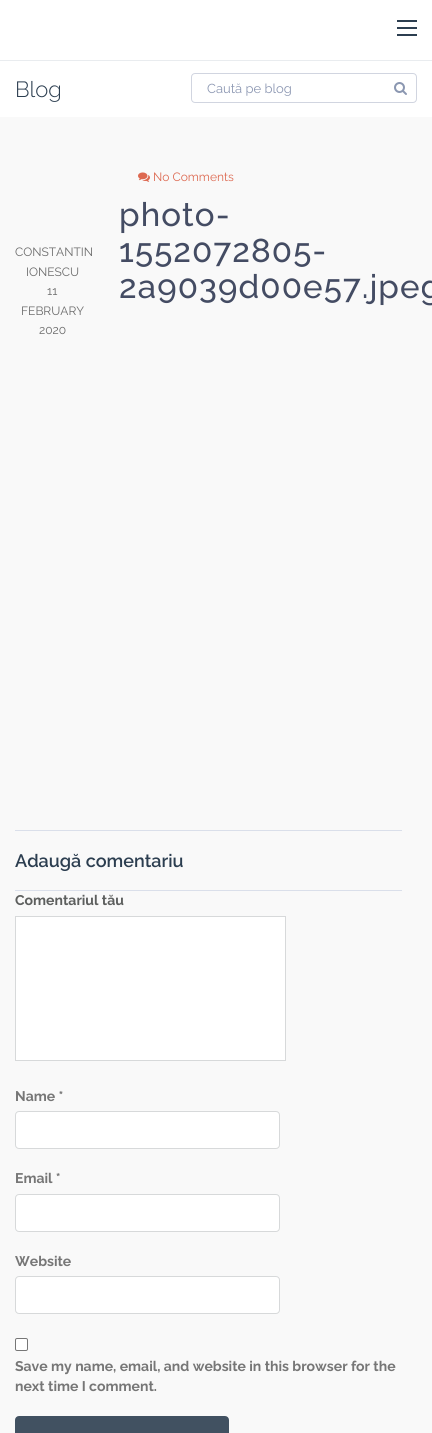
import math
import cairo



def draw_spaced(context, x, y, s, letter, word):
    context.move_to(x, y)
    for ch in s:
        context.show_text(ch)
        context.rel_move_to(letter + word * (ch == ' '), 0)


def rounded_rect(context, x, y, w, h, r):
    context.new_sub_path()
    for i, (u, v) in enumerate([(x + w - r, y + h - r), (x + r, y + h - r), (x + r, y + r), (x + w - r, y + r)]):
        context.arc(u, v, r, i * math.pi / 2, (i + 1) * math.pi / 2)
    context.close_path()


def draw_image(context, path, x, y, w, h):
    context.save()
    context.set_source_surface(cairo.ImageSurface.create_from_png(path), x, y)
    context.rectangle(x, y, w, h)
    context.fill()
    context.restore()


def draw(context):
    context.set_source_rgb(249 / 255, 249 / 255, 249 / 255)
    context.paint()
    context.set_source_rgb(1, 1, 1)
    context.rectangle(0, 0, 432, 60)
    context.fill()
    context.set_source_rgb(233 / 255, 236 / 255, 239 / 255)
    context.rectangle(0, 60, 432, 1)
    context.fill()
    context.set_source_rgb(44 / 255, 62 / 255, 80 / 255)
    context.rectangle(397, 20, 20, 2)
    context.fill()
    context.rectangle(397, 27, 20, 2)
    context.fill()
    context.rectangle(397, 34, 20, 2)
    context.fill()
    context.set_source_rgb(1, 1, 1)
    context.rectangle(0, 61, 432, 56)
    context.fill()
    rounded_rect(context, 191.5, 73.5, 225, 29, 3.5)
    context.set_source_rgb(209 / 255, 213 / 255, 224 / 255)
    context.set_line_width(1)
    context.stroke()
    draw_image(context, "images/1.png", 394, 82, 13, 13)
    draw_image(context, "images/2.png", 138, 172, 12, 10)
    context.set_source_rgb(218 / 255, 223 / 255, 234 / 255)
    context.rectangle(15, 830, 387, 1)
    context.fill()
    context.rectangle(15, 890, 387, 1)
    context.fill()
    context.set_source_rgb(1, 1, 1)
    context.rectangle(15.5, 916.5, 270, 144)
    context.fill_preserve()
    context.set_source_rgb(215 / 255, 217 / 255, 218 / 255)
    context.stroke()
    context.set_source_rgb(1, 1, 1)
    rounded_rect(context, 15.5, 1111.5, 264, 37, 3.5)
    context.fill_preserve()
    context.set_source_rgb(215 / 255, 217 / 255, 218 / 255)
    context.stroke()
    context.set_source_rgb(1, 1, 1)
    rounded_rect(context, 15.5, 1194.5, 264, 37, 3.5)
    context.fill_preserve()
    context.set_source_rgb(215 / 255, 217 / 255, 218 / 255)
    context.stroke()
    context.set_source_rgb(1, 1, 1)
    rounded_rect(context, 15.5, 1276.5, 264, 37, 3.5)
    context.fill_preserve()
    context.set_source_rgb(215 / 255, 217 / 255, 218 / 255)
    context.stroke()
    context.set_source_rgb(1, 1, 1)
    rounded_rect(context, 15.5, 1338.5, 12, 12, 1.5)
    context.fill_preserve()
    context.set_source_rgb(118 / 255, 118 / 255, 118 / 255)
    context.stroke()
    context.set_source_rgb(65 / 255, 81 / 255, 97 / 255)
    rounded_rect(context, 16, 1417, 212, 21, 3)
    context.fill_preserve()
    context.set_line_width(2)
    context.stroke()
    context.select_font_face("Raleway Light")
    context.set_font_size(22)
    context.set_source_rgb(44 / 255, 62 / 255, 80 / 255)
    context.move_to(15, 97)
    context.show_text("Blog")
    context.select_font_face("Raleway")
    context.set_font_size(13)
    context.set_source_rgb(140 / 255, 151 / 255, 178 / 255)
    context.move_to(207, 93)
    context.show_text("Caută pe blog")
    context.set_font_size(12)
    context.set_source_rgb(107 / 255, 107 / 255, 107 / 255)
    context.move_to(15, 256)
    context.show_text("CONSTANTIN")
    context.move_to(26, 276)
    context.show_text("IONESCU")
    context.move_to(47, 295)
    context.show_text("11")
    context.move_to(21, 315)
    context.show_text("FEBRUARY")
    context.move_to(39, 334)
    context.show_text("2020")
    context.set_source_rgb(221 / 255, 105 / 255, 81 / 255)
    context.move_to(153, 181)
    context.show_text("No Comments")
    context.select_font_face("Raleway Medium")
    context.set_font_size(33)
    context.set_source_rgb(68 / 255, 76 / 255, 99 / 255)
    draw_spaced(context, 119, 226, "photo-", 1.1, 0)
    draw_spaced(context, 119, 262, "1552072805-", 1.1, 0)
    draw_spaced(context, 119, 298, "2a9039d00e57.jpeg", 1.1, 0)
    context.select_font_face("Raleway SemiBold")
    context.set_font_size(18)
    context.set_source_rgb(44 / 255, 62 / 255, 80 / 255)
    context.move_to(15, 867)
    context.show_text("Adaugă comentariu")
    context.select_font_face("Raleway", cairo.FontSlant.NORMAL, cairo.FontWeight.BOLD)
    context.set_font_size(14)
    context.set_source_rgb(93 / 255, 95 / 255, 94 / 255)
    context.move_to(15, 905)
    context.show_text("Comentariul tău")
    context.set_source_rgb(118 / 255, 118 / 255, 118 / 255)
    context.move_to(15, 1101)
    context.show_text("Name *")
    context.move_to(15, 1183)
    context.show_text("Email *")
    context.move_to(15, 1266)
    context.show_text("Website")
    context.move_to(15, 1371)
    context.show_text("Save my name, email, and website in this browser for the")
    context.move_to(15, 1391)
    context.show_text("next time I comment.")


surface = cairo.ImageSurface(cairo.Format.RGB24, 432, 1433)
context = cairo.Context(surface)
options = cairo.FontOptions()
options.set_hint_metrics(cairo.HintMetrics.OFF)
options.set_hint_style(cairo.HintStyle.NONE)
context.set_font_options(options)
context.set_miter_limit(4)
draw(context)
surface.write_to_png("out.png")
